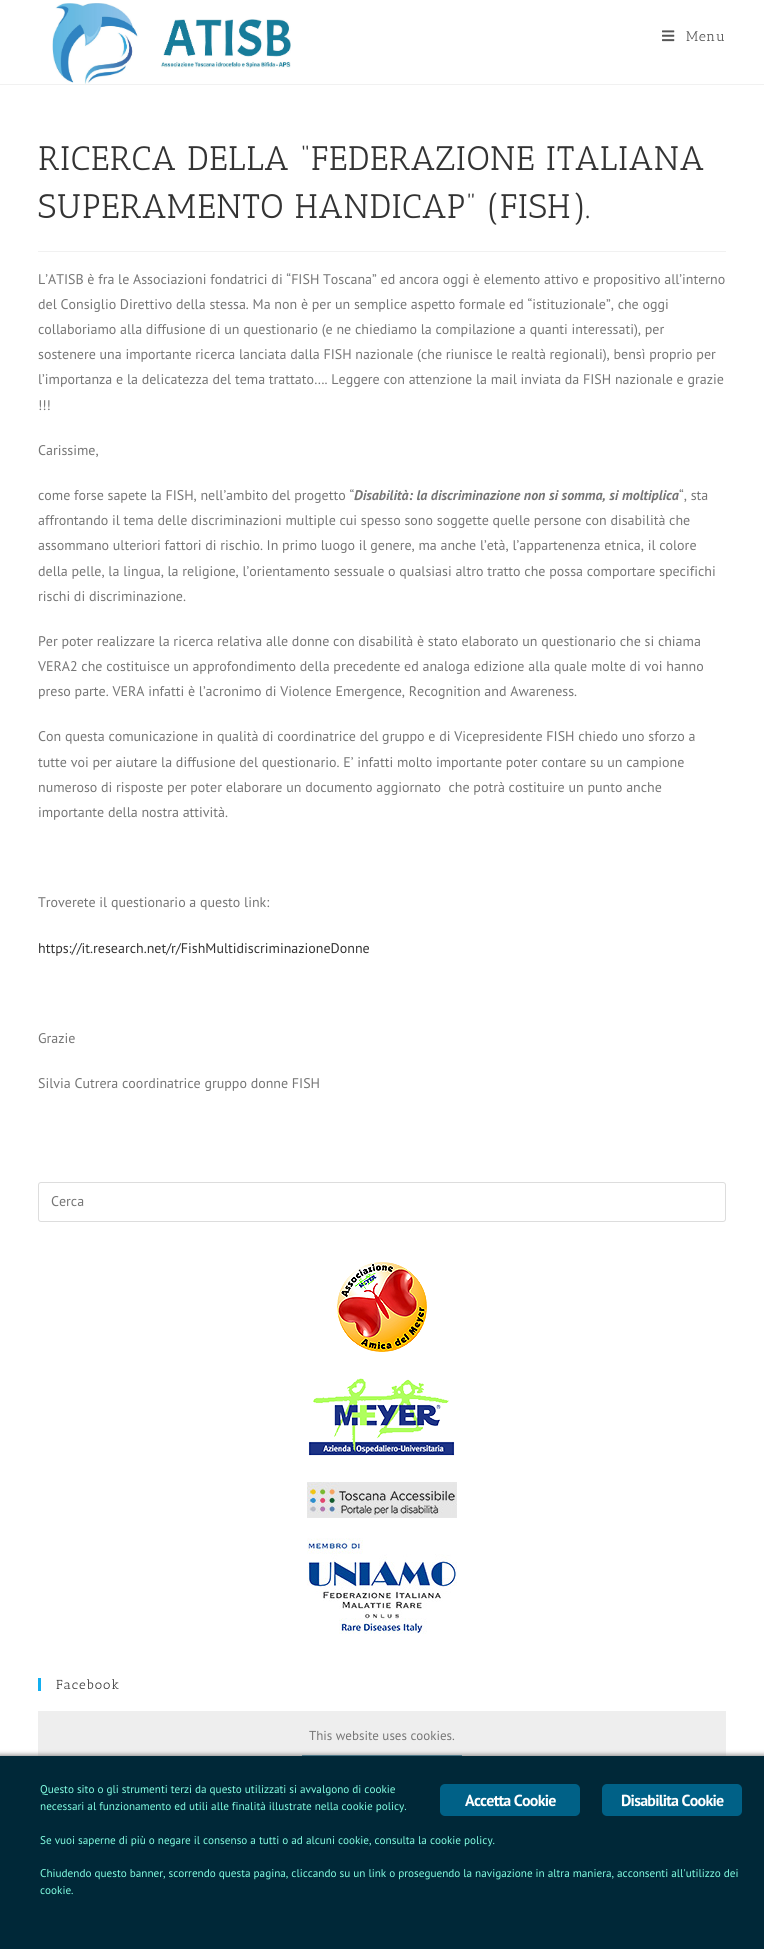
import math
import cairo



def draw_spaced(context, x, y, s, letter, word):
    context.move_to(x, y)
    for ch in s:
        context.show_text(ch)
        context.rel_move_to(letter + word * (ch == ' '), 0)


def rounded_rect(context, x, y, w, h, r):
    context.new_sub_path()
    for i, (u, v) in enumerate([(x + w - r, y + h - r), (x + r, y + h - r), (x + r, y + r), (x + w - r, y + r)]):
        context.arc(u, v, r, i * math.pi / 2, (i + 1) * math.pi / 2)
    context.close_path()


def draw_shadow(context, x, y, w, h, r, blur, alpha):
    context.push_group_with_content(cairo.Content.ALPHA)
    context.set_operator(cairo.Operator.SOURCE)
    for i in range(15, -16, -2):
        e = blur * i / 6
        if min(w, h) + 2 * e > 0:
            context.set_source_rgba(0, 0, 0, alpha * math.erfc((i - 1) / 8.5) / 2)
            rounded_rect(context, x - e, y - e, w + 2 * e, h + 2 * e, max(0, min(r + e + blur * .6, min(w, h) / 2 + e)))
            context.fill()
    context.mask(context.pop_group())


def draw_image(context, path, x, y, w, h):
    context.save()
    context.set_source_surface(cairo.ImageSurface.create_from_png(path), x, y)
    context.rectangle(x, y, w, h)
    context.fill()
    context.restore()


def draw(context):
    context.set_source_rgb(1, 1, 1)
    context.paint()
    context.set_source_rgb(241 / 255, 241 / 255, 241 / 255)
    context.rectangle(0, 84, 764, 1)
    context.fill()
    draw_image(context, "images/1.png", 52, 3, 239, 81)
    draw_image(context, "images/2.png", 662, 30, 13, 12)
    context.rectangle(38, 251, 688, 1)
    context.fill()
    rounded_rect(context, 38.5, 1182.5, 687, 39, 2.5)
    context.set_source_rgb(221 / 255, 221 / 255, 221 / 255)
    context.set_line_width(1)
    context.stroke()
    draw_image(context, "images/3.png", 337, 1262, 90, 90)
    draw_image(context, "images/4.png", 308, 1378, 147, 78)
    draw_image(context, "images/5.png", 307, 1482, 150, 36)
    draw_image(context, "images/6.png", 307, 1538, 150, 96)
    context.set_source_rgb(19 / 255, 175 / 255, 240 / 255)
    context.rectangle(38, 1678, 3, 13)
    context.fill()
    context.set_source_rgb(238 / 255, 238 / 255, 238 / 255)
    context.rectangle(38, 1711, 688, 45)
    context.fill()
    context.set_source_rgb(0, 97 / 255, 135 / 255)
    context.rectangle(302, 1755, 160, 1)
    context.fill()
    context.set_source_rgb(135 / 255, 135 / 255, 135 / 255)
    draw_shadow(context, -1, 1755, 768, 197, 0, 2.5, 1)
    context.set_source_rgb(0, 40 / 255, 56 / 255)
    context.rectangle(0, 1756, 764, 193)
    context.fill()
    context.set_source_rgb(0, 97 / 255, 135 / 255)
    rounded_rect(context, 440, 1784, 140, 32, 5)
    context.fill()
    rounded_rect(context, 602, 1784, 140, 32, 5)
    context.fill()
    context.select_font_face("Antic Slab")
    context.set_font_size(14)
    context.set_source_rgb(85 / 255, 85 / 255, 85 / 255)
    draw_spaced(context, 686, 41, "Menu", 0.5, 0)
    context.set_font_size(34)
    context.set_source_rgb(51 / 255, 51 / 255, 51 / 255)
    draw_spaced(context, 38, 170, "RICERCA DELLA “FEDERAZIONE ITALIANA", 0.6, 0)
    draw_spaced(context, 38, 218, "SUPERAMENTO HANDICAP” (FISH).", 0.6, 0)
    context.select_font_face("PT Sans")
    context.set_font_size(14)
    context.set_source_rgb(117 / 255, 117 / 255, 117 / 255)
    context.move_to(38, 284)
    context.show_text("L’ATISB è fra le Associazioni fondatrici di “FISH Toscana” ed ancora oggi è elemento attivo e propositivo all’interno")
    context.move_to(38, 309)
    context.show_text("del Consiglio Direttivo della stessa. Ma non è per un semplice aspetto formale ed “istituzionale”, che oggi")
    context.move_to(38, 334)
    context.show_text("collaboriamo alla diffusione di un questionario (e ne chiediamo la compilazione a quanti interessati), per")
    context.move_to(38, 359)
    context.show_text("sostenere una importante ricerca lanciata dalla FISH nazionale (che riunisce le realtà regionali), bensì proprio per")
    context.move_to(38, 384)
    context.show_text("l’importanza e la delicatezza del tema trattato…. Leggere con attenzione la mail inviata da FISH nazionale e grazie")
    context.move_to(38, 410)
    context.show_text("!!!")
    context.move_to(38, 455)
    context.show_text("Carissime,")
    context.move_to(38, 500)
    context.show_text("come forse sapete la FISH, nell’ambito del progetto “")
    context.select_font_face("PT Sans", cairo.FontSlant.ITALIC, cairo.FontWeight.BOLD)
    context.move_to(354, 500)
    context.show_text("Disabilità: la discriminazione non si somma, si moltiplica")
    context.select_font_face("PT Sans")
    context.move_to(679, 500)
    context.show_text("“, sta")
    context.move_to(38, 525)
    context.show_text("affrontando il tema delle discriminazioni multiple cui spesso sono soggette quelle persone con disabilità che")
    context.move_to(38, 550)
    context.show_text("assommano ulteriori fattori di rischio. In primo luogo il genere, ma anche l’età, l’appartenenza etnica, il colore")
    context.move_to(38, 576)
    context.show_text("della pelle, la lingua, la religione, l’orientamento sessuale o qualsiasi altro tratto che possa comportare specifichi")
    context.move_to(38, 601)
    context.show_text("rischi di discriminazione.")
    context.move_to(38, 646)
    context.show_text("Per poter realizzare la ricerca relativa alle donne con disabilità è stato elaborato un questionario che si chiama")
    context.move_to(38, 671)
    context.show_text("VERA2 che costituisce un approfondimento della precedente ed analoga edizione alla quale molte di voi hanno")
    context.move_to(38, 696)
    context.show_text("preso parte. VERA infatti è l’acronimo di Violence Emergence, Recognition and Awareness.")
    context.move_to(38, 741)
    context.show_text("Con questa comunicazione in qualità di coordinatrice del gruppo e di Vicepresidente FISH chiedo uno sforzo a")
    context.move_to(38, 767)
    context.show_text("tutte voi per aiutare la diffusione del questionario. E’ infatti molto importante poter contare su un campione")
    context.move_to(38, 792)
    context.show_text("numeroso di risposte per poter elaborare un documento aggiornato  che potrà costituire un punto anche")
    context.move_to(38, 817)
    context.show_text("importante della nostra attività.")
    context.move_to(38, 907)
    context.show_text("Troverete il questionario a questo link:")
    context.set_source_rgb(51 / 255, 51 / 255, 51 / 255)
    context.move_to(38, 953)
    context.show_text("https://it.research.net/r/FishMultidiscriminazioneDonne")
    context.set_source_rgb(117 / 255, 117 / 255, 117 / 255)
    context.move_to(38, 1043)
    context.show_text("Grazie")
    context.move_to(38, 1088)
    context.show_text("Silvia Cutrera coordinatrice gruppo donne FISH")
    context.move_to(51, 1206)
    context.show_text("Cerca")
    context.select_font_face("Antic Slab")
    context.set_font_size(13)
    context.set_source_rgb(51 / 255, 51 / 255, 51 / 255)
    draw_spaced(context, 56, 1689, "Facebook", 1, 0)
    context.select_font_face("PT Sans")
    context.set_source_rgb(117 / 255, 117 / 255, 117 / 255)
    context.move_to(309, 1740)
    context.show_text("This website uses cookies.")
    context.set_font_size(11.2)
    context.set_source_rgb(130 / 255, 1, 227 / 255)
    context.move_to(40, 1793)
    context.show_text("Questo sito o gli strumenti terzi da questo utilizzati si avvalgono di cookie")
    context.move_to(40, 1810)
    context.show_text("necessari al funzionamento ed utili alle finalità illustrate nella cookie policy.")
    context.move_to(40, 1844)
    context.show_text("Se vuoi saperne di più o negare il consenso a tutti o ad alcuni cookie, consulta la cookie policy.")
    context.move_to(40, 1877)
    context.show_text("Chiudendo questo banner, scorrendo questa pagina, cliccando su un link o proseguendo la navigazione in altra maniera, acconsenti all'utilizzo dei")
    context.move_to(40, 1894)
    context.show_text("cookie.")
    context.select_font_face("PT Sans", cairo.FontSlant.NORMAL, cairo.FontWeight.BOLD)
    context.set_font_size(16)
    context.set_source_rgb(1, 1, 1)
    draw_spaced(context, 465, 1806, "Accetta Cookie", -0.75, 0)
    draw_spaced(context, 621, 1806, "Disabilita Cookie", -0.75, 0)


surface = cairo.ImageSurface(cairo.Format.RGB24, 764, 1949)
context = cairo.Context(surface)
options = cairo.FontOptions()
options.set_hint_metrics(cairo.HintMetrics.OFF)
options.set_hint_style(cairo.HintStyle.NONE)
context.set_font_options(options)
context.set_miter_limit(4)
draw(context)
surface.write_to_png("out.png")
